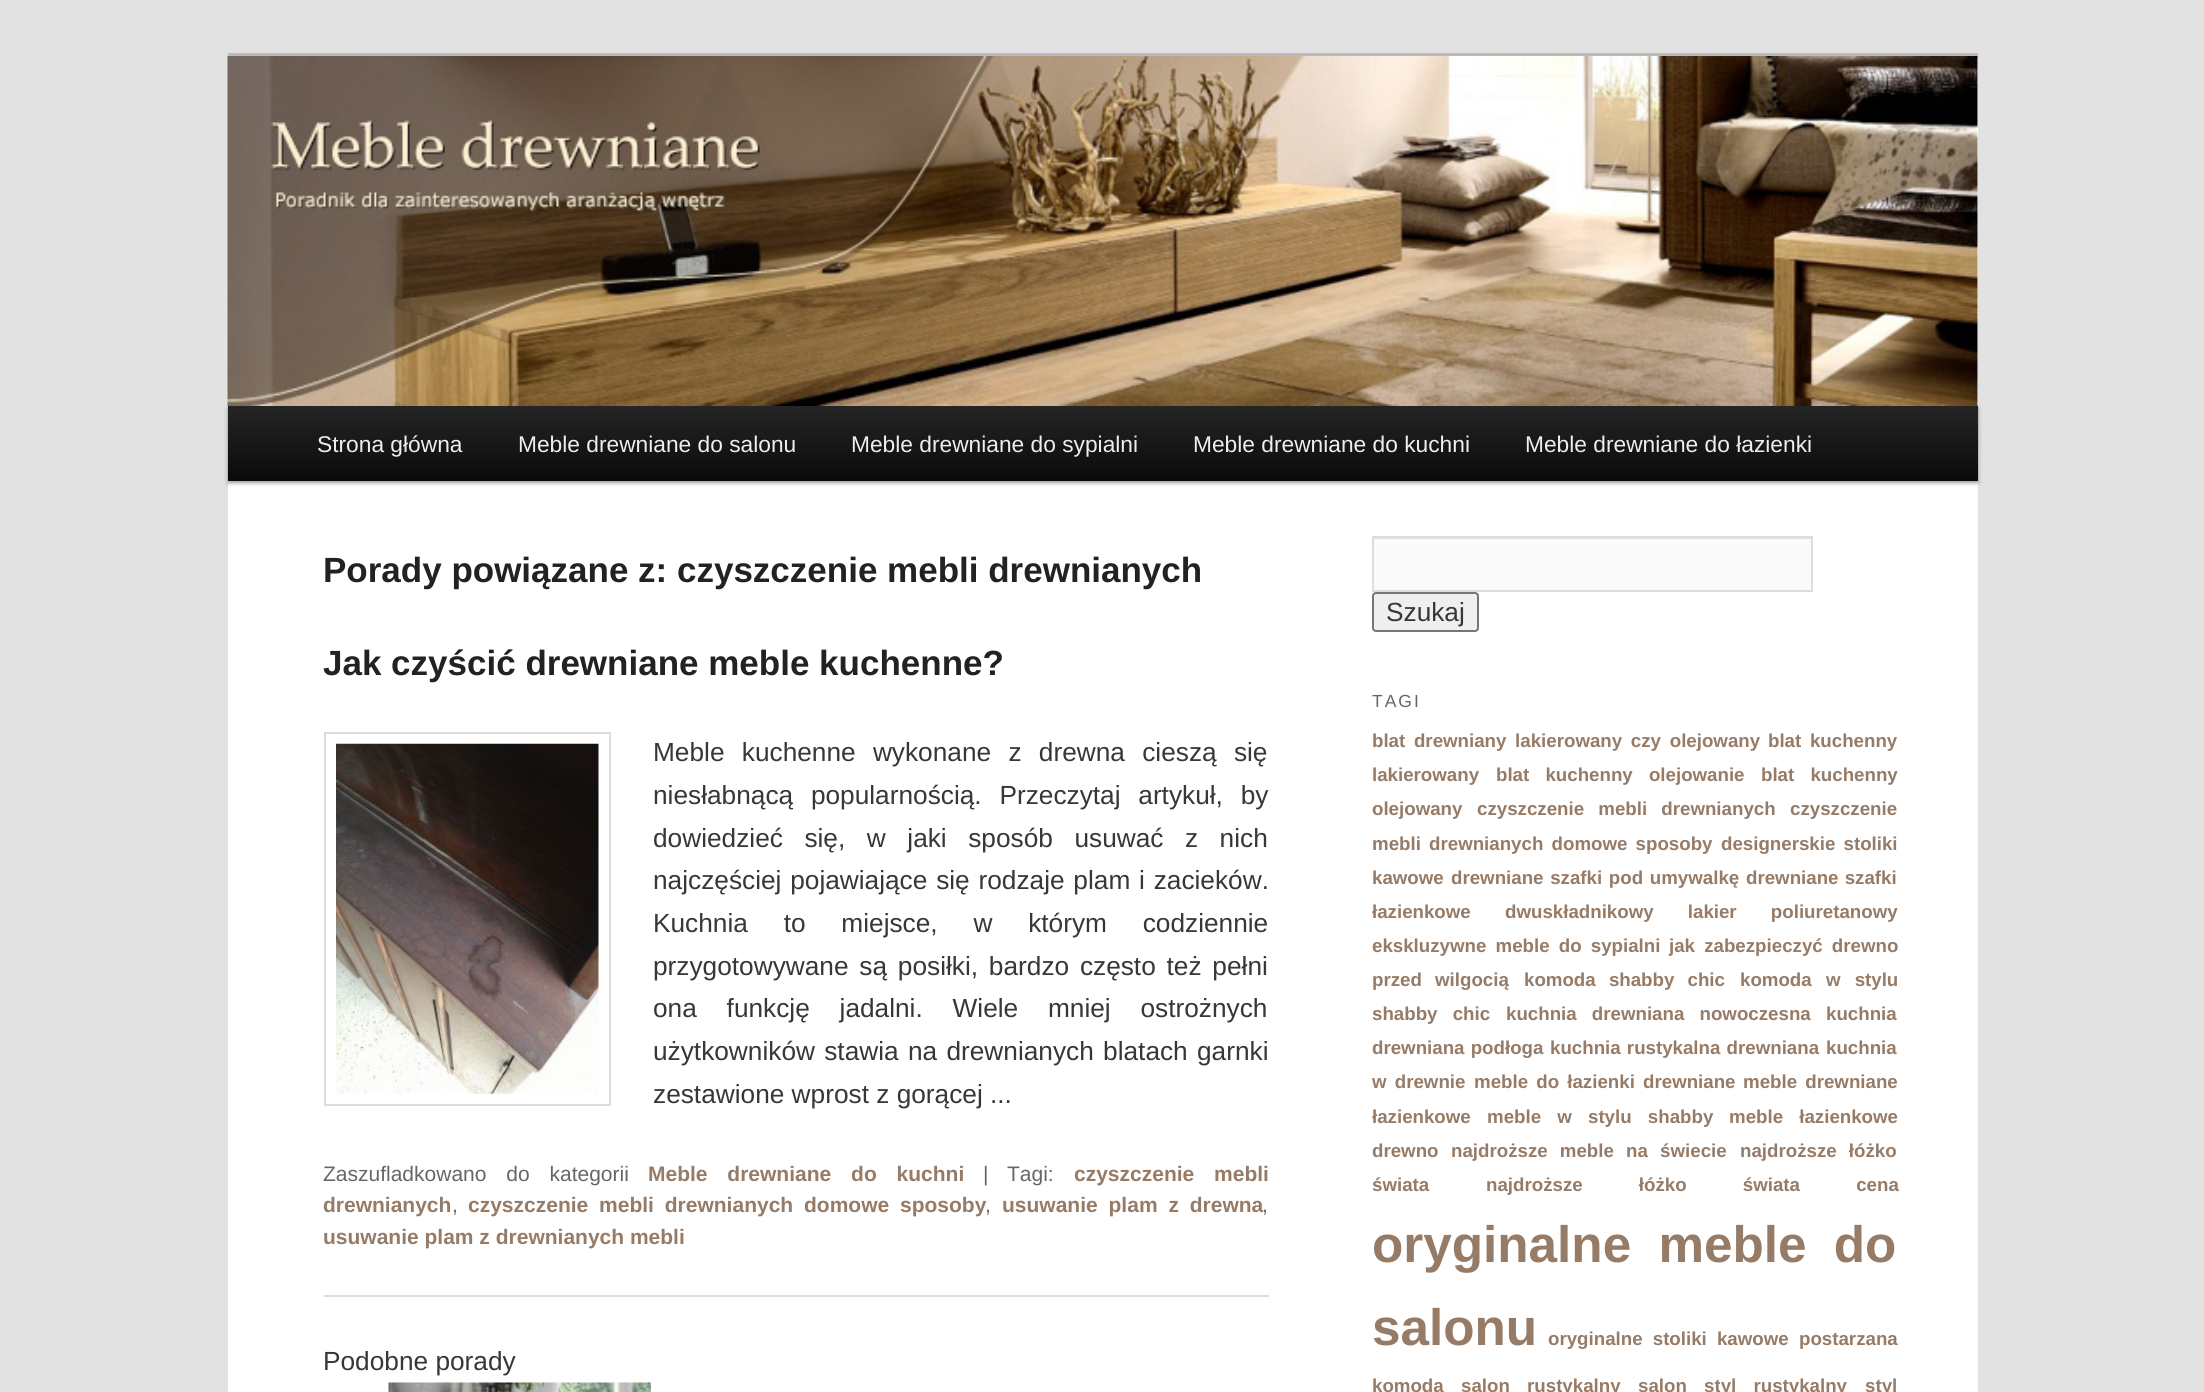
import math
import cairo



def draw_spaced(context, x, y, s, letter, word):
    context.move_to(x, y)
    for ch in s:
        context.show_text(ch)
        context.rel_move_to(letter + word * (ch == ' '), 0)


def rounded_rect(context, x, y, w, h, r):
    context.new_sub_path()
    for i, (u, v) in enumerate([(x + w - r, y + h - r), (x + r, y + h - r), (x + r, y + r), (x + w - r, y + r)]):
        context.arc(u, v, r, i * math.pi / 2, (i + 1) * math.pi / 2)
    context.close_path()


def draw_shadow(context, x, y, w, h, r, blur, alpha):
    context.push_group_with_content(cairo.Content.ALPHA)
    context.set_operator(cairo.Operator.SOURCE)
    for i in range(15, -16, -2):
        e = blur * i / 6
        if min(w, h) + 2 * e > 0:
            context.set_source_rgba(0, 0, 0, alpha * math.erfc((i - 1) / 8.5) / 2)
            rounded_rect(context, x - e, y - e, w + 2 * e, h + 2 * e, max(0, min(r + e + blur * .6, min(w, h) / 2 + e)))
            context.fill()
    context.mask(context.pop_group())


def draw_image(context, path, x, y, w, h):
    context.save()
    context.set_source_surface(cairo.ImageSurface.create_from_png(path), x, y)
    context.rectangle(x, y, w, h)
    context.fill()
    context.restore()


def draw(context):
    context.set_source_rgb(226 / 255, 226 / 255, 226 / 255)
    context.paint()
    context.set_source_rgb(1, 1, 1)
    context.rectangle(228, 57, 1750, 1335)
    context.fill()
    context.set_source_rgb(187 / 255, 187 / 255, 187 / 255)
    context.rectangle(228, 53, 1750, 4)
    context.fill()
    context.set_source_rgb(0, 0, 0)
    draw_shadow(context, 228, 408, 1750, 75, 0, 2, 0.4)
    draw_image(context, "images/1.png", 227, 56, 1751, 350)
    gradient = cairo.LinearGradient(1103, 406, 1103, 481)
    gradient.add_color_stop_rgba(0, 37 / 255, 37 / 255, 37 / 255, 1)
    gradient.add_color_stop_rgba(1, 10 / 255, 10 / 255, 10 / 255, 1)
    context.set_source(gradient)
    context.rectangle(228, 406, 1750, 75)
    context.fill()
    context.set_source_rgb(221 / 255, 221 / 255, 221 / 255)
    context.rectangle(324, 1295, 945, 2)
    context.fill()
    context.rectangle(325, 733, 285, 372)
    context.stroke()
    draw_image(context, "images/2.png", 336, 743, 263, 351)
    draw_image(context, "images/3.png", 388, 1382, 263, 10)
    context.set_source_rgb(250 / 255, 250 / 255, 250 / 255)
    context.rectangle(1374, 539, 437, 51)
    context.fill()
    context.set_source_rgb(225 / 255, 225 / 255, 225 / 255)
    context.rectangle(1374, 538, 437, 1)
    context.fill()
    context.rectangle(1373, 537, 439, 54)
    context.set_source_rgb(221 / 255, 221 / 255, 221 / 255)
    context.stroke()
    context.set_source_rgb(239 / 255, 239 / 255, 239 / 255)
    rounded_rect(context, 1373, 593, 105, 38, 3)
    context.fill_preserve()
    context.set_source_rgb(118 / 255, 118 / 255, 118 / 255)
    context.stroke()
    context.select_font_face("Liberation Sans")
    context.set_font_size(22.75)
    context.set_source_rgb(238 / 255, 238 / 255, 238 / 255)
    context.move_to(317, 452)
    context.show_text("Strona główna")
    context.move_to(518, 452)
    context.show_text("Meble drewniane do salonu")
    context.move_to(851, 452)
    context.show_text("Meble drewniane do sypialni")
    context.move_to(1193, 452)
    context.show_text("Meble drewniane do kuchni")
    context.move_to(1525, 452)
    context.show_text("Meble drewniane do łazienki")
    context.select_font_face("Liberation Sans", cairo.FontSlant.NORMAL, cairo.FontWeight.BOLD)
    context.set_font_size(35)
    context.set_source_rgb(34 / 255, 34 / 255, 34 / 255)
    context.move_to(323, 582)
    context.show_text("Porady powiązane z: czyszczenie mebli drewnianych")
    context.move_to(323, 675)
    context.show_text("Jak czyścić drewniane meble kuchenne?")
    context.select_font_face("Liberation Sans")
    context.set_font_size(26.25)
    context.set_source_rgb(55 / 255, 55 / 255, 55 / 255)
    draw_spaced(context, 653, 761, "Meble kuchenne wykonane z drewna cieszą się", 0, 10)
    draw_spaced(context, 653, 804, "niesłabnącą popularnością. Przeczytaj artykuł, by", 0, 10.5)
    draw_spaced(context, 653, 847, "dowiedzieć się, w jaki sposób usuwać z nich", 0, 14.25)
    draw_spaced(context, 653, 889, "najczęściej pojawiające się rodzaje plam i zacieków.", 0, 1.5)
    draw_spaced(context, 653, 932, "Kuchnia to miejsce, w którym codziennie", 0, 28.5)
    draw_spaced(context, 653, 975, "przygotowywane są posiłki, bardzo często też pełni", 0, 3.5)
    draw_spaced(context, 653, 1017, "ona funkcję jadalni. Wiele mniej ostrożnych", 0, 22.5)
    draw_spaced(context, 653, 1060, "użytkowników stawia na drewnianych blatach garnki", 0, 2)
    context.move_to(653, 1103)
    context.show_text("zestawione wprost z gorącej ...")
    context.set_font_size(21)
    context.set_source_rgb(102 / 255, 102 / 255, 102 / 255)
    draw_spaced(context, 323, 1181, "Zaszufladkowano do kategorii", 0, 14)
    context.select_font_face("Liberation Sans", cairo.FontSlant.NORMAL, cairo.FontWeight.BOLD)
    context.set_source_rgb(150 / 255, 123 / 255, 102 / 255)
    draw_spaced(context, 648, 1181, "Meble drewniane do kuchni", 0, 14)
    context.select_font_face("Liberation Sans")
    context.set_source_rgb(102 / 255, 102 / 255, 102 / 255)
    context.move_to(983, 1181)
    context.show_text("|")
    context.move_to(1007, 1181)
    context.show_text("Tagi:")
    context.select_font_face("Liberation Sans", cairo.FontSlant.NORMAL, cairo.FontWeight.BOLD)
    context.set_source_rgb(150 / 255, 123 / 255, 102 / 255)
    draw_spaced(context, 1074, 1181, "czyszczenie mebli", 0, 14)
    context.move_to(323, 1212)
    context.show_text("drewnianych")
    context.select_font_face("Liberation Sans")
    context.set_source_rgb(102 / 255, 102 / 255, 102 / 255)
    context.move_to(452, 1212)
    context.show_text(",")
    context.select_font_face("Liberation Sans", cairo.FontSlant.NORMAL, cairo.FontWeight.BOLD)
    context.set_source_rgb(150 / 255, 123 / 255, 102 / 255)
    draw_spaced(context, 468, 1212, "czyszczenie mebli drewnianych domowe sposoby", 0, 5)
    context.select_font_face("Liberation Sans")
    context.set_source_rgb(102 / 255, 102 / 255, 102 / 255)
    context.move_to(985, 1212)
    context.show_text(",")
    context.select_font_face("Liberation Sans", cairo.FontSlant.NORMAL, cairo.FontWeight.BOLD)
    context.set_source_rgb(150 / 255, 123 / 255, 102 / 255)
    draw_spaced(context, 1002, 1212, "usuwanie plam z drewna", 0, 5)
    context.select_font_face("Liberation Sans")
    context.set_source_rgb(102 / 255, 102 / 255, 102 / 255)
    context.move_to(1262, 1212)
    context.show_text(",")
    context.select_font_face("Liberation Sans", cairo.FontSlant.NORMAL, cairo.FontWeight.BOLD)
    context.set_source_rgb(150 / 255, 123 / 255, 102 / 255)
    context.move_to(323, 1244)
    context.show_text("usuwanie plam z drewnianych mebli")
    context.select_font_face("Liberation Sans")
    context.set_font_size(26.25)
    context.set_source_rgb(55 / 255, 55 / 255, 55 / 255)
    context.move_to(323, 1370)
    context.show_text("Podobne porady")
    context.move_to(1386, 621)
    context.show_text("Szukaj")
    context.set_font_size(17.5)
    context.set_source_rgb(102 / 255, 102 / 255, 102 / 255)
    draw_spaced(context, 1372, 707, "TAGI", 2, 0)
    context.select_font_face("Liberation Sans", cairo.FontSlant.NORMAL, cairo.FontWeight.BOLD)
    context.set_font_size(18.7)
    context.set_source_rgb(150 / 255, 123 / 255, 102 / 255)
    draw_spaced(context, 1372, 747, "blat drewniany lakierowany czy olejowany", 0, 3.5)
    draw_spaced(context, 1768, 747, "blat kuchenny", 0, 3.5)
    context.move_to(1372, 781)
    context.show_text("lakierowany")
    draw_spaced(context, 1496, 781, "blat kuchenny olejowanie", 0, 11)
    draw_spaced(context, 1761, 781, "blat kuchenny", 0, 11)
    context.move_to(1372, 815)
    context.show_text("olejowany")
    draw_spaced(context, 1477, 815, "czyszczenie mebli drewnianych", 0, 9)
    context.move_to(1790, 815)
    context.show_text("czyszczenie")
    draw_spaced(context, 1372, 850, "mebli drewnianych domowe sposoby", 0, 3)
    draw_spaced(context, 1721, 850, "designerskie stoliki", 0, 3)
    context.move_to(1372, 884)
    context.show_text("kawowe")
    draw_spaced(context, 1451, 884, "drewniane szafki pod umywalkę", 0, 1.5)
    draw_spaced(context, 1746, 884, "drewniane szafki", 0, 1)
    context.move_to(1372, 918)
    context.show_text("łazienkowe")
    draw_spaced(context, 1505, 918, "dwuskładnikowy lakier poliuretanowy", 0, 29)
    draw_spaced(context, 1372, 952, "ekskluzywne meble do sypialni", 0, 4)
    draw_spaced(context, 1669, 952, "jak zabezpieczyć drewno", 0, 4)
    draw_spaced(context, 1372, 986, "przed wilgocią", 0, 8)
    draw_spaced(context, 1524, 986, "komoda shabby chic", 0, 8)
    draw_spaced(context, 1740, 986, "komoda w stylu", 0, 9)
    draw_spaced(context, 1372, 1020, "shabby chic", 0, 10)
    draw_spaced(context, 1506, 1020, "kuchnia drewniana nowoczesna", 0, 10)
    context.move_to(1826, 1020)
    context.show_text("kuchnia")
    draw_spaced(context, 1372, 1054, "drewniana podłoga", 0, 1)
    draw_spaced(context, 1550, 1054, "kuchnia rustykalna drewniana", 0, 1)
    context.move_to(1826, 1054)
    context.show_text("kuchnia")
    draw_spaced(context, 1372, 1088, "w drewnie", 0, 3)
    draw_spaced(context, 1474, 1088, "meble do łazienki drewniane", 0, 3)
    draw_spaced(context, 1743, 1088, "meble drewniane", 0, 3)
    context.move_to(1372, 1123)
    context.show_text("łazienkowe")
    draw_spaced(context, 1487, 1123, "meble w stylu shabby", 0, 11)
    draw_spaced(context, 1729, 1123, "meble łazienkowe", 0, 11)
    context.move_to(1372, 1157)
    context.show_text("drewno")
    draw_spaced(context, 1451, 1157, "najdroższe meble na świecie", 0, 7)
    draw_spaced(context, 1740, 1157, "najdroższe łóżko", 0, 7)
    context.move_to(1372, 1191)
    context.show_text("świata")
    draw_spaced(context, 1486, 1191, "najdroższe łóżko świata cena", 0, 51)
    context.set_font_size(51.25)
    draw_spaced(context, 1372, 1262, "oryginalne meble do", 0, 13)
    context.move_to(1372, 1345)
    context.show_text("salonu")
    context.set_font_size(18.7)
    draw_spaced(context, 1548, 1345, "oryginalne stoliki kawowe", 0, 5)
    context.move_to(1799, 1345)
    context.show_text("postarzana")
    context.move_to(1372, 1392)
    context.show_text("komoda")
    draw_spaced(context, 1461, 1392, "salon rustykalny", 0, 12)
    draw_spaced(context, 1638, 1392, "salon styl rustykalny", 0, 12)
    context.move_to(1865, 1392)
    context.show_text("styl")


surface = cairo.ImageSurface(cairo.Format.RGB24, 2204, 1392)
context = cairo.Context(surface)
options = cairo.FontOptions()
options.set_hint_metrics(cairo.HintMetrics.OFF)
options.set_hint_style(cairo.HintStyle.NONE)
context.set_font_options(options)
context.set_miter_limit(4)
draw(context)
surface.write_to_png("out.png")
